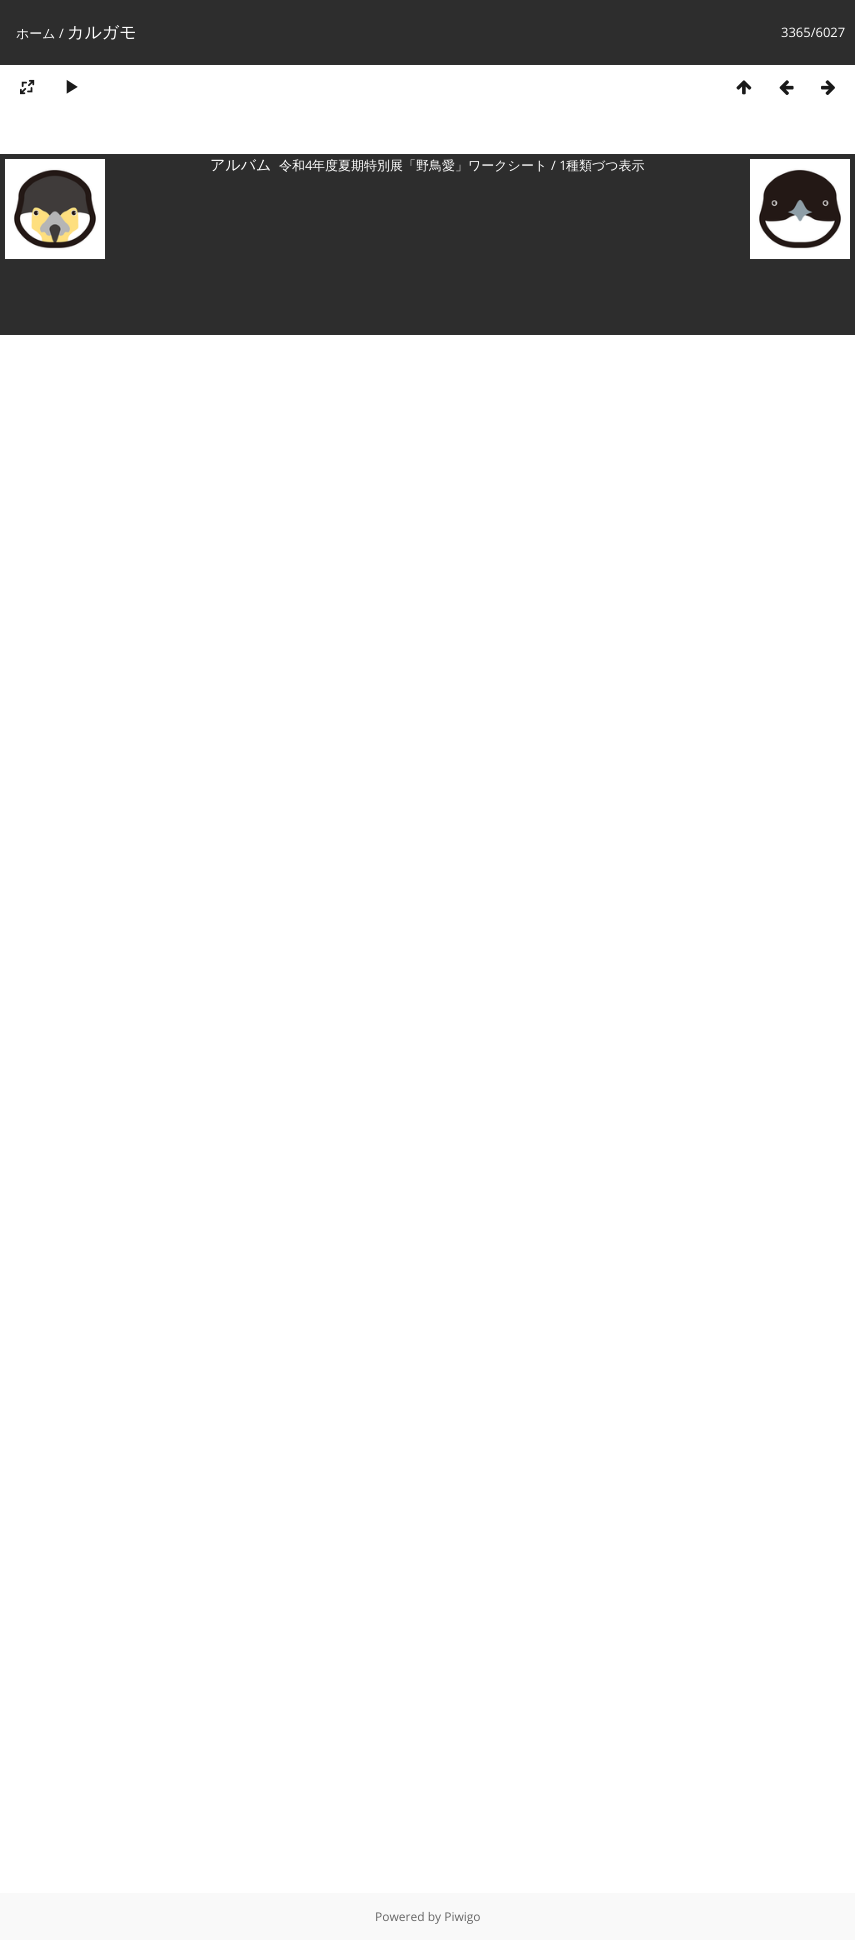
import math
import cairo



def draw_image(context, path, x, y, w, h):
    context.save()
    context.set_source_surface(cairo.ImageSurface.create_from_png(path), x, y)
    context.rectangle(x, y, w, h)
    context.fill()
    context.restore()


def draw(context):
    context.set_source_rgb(1, 1, 1)
    context.paint()
    context.set_source_rgb(45 / 255, 45 / 255, 45 / 255)
    context.rectangle(0, 0, 855, 65)
    context.fill()
    draw_image(context, "images/1.png", 20, 79, 15, 16)
    draw_image(context, "images/2.png", 736, 80, 16, 15)
    draw_image(context, "images/3.png", 779, 80, 15, 15)
    draw_image(context, "images/4.png", 821, 80, 14, 15)
    context.rectangle(0, 154, 855, 181)
    context.fill()
    draw_image(context, "images/5.png", 5, 159, 100, 100)
    draw_image(context, "images/6.png", 750, 159, 100, 100)
    context.set_source_rgb(249 / 255, 249 / 255, 249 / 255)
    context.rectangle(0, 1893, 855, 47)
    context.fill()
    context.select_font_face("WenQuanYi Zen Hei Medium")
    context.set_font_size(13)
    context.set_source_rgb(1, 1, 1)
    context.move_to(16, 38)
    context.show_text("ホーム")
    context.select_font_face("Open Sans")
    context.move_to(59, 38)
    context.show_text("/")
    context.select_font_face("WenQuanYi Zen Hei Medium")
    context.set_font_size(17)
    context.move_to(67, 38)
    context.show_text("カルガモ")
    context.select_font_face("Open Sans")
    context.set_font_size(13)
    context.move_to(781, 37)
    context.show_text("3365/6027")
    context.select_font_face("WenQuanYi Zen Hei Medium")
    context.set_font_size(17)
    context.set_source_rgb(26 / 255, 26 / 255, 26 / 255)
    context.move_to(64, 93)
    context.show_text("▶")
    context.set_font_size(15)
    context.set_source_rgb(1, 1, 1)
    context.move_to(210, 170)
    context.show_text("アルバム")
    context.set_font_size(13)
    context.move_to(279, 170)
    context.show_text("令和")
    context.select_font_face("Open Sans")
    context.move_to(305, 170)
    context.show_text("4")
    context.select_font_face("WenQuanYi Zen Hei Medium")
    context.move_to(312, 170)
    context.show_text("年度夏期特別展「野鳥愛」ワークシート")
    context.select_font_face("Open Sans")
    context.move_to(551, 170)
    context.show_text("/ 1")
    context.select_font_face("WenQuanYi Zen Hei Medium")
    context.move_to(566, 170)
    context.show_text("種類づつ表示")
    context.select_font_face("Open Sans")
    context.set_font_size(12)
    context.set_source_rgb(102 / 255, 102 / 255, 102 / 255)
    context.move_to(375, 1921)
    context.show_text("Powered by Piwigo")


surface = cairo.ImageSurface(cairo.Format.RGB24, 855, 1940)
context = cairo.Context(surface)
options = cairo.FontOptions()
options.set_hint_metrics(cairo.HintMetrics.OFF)
options.set_hint_style(cairo.HintStyle.NONE)
context.set_font_options(options)
context.set_miter_limit(4)
draw(context)
surface.write_to_png("out.png")
